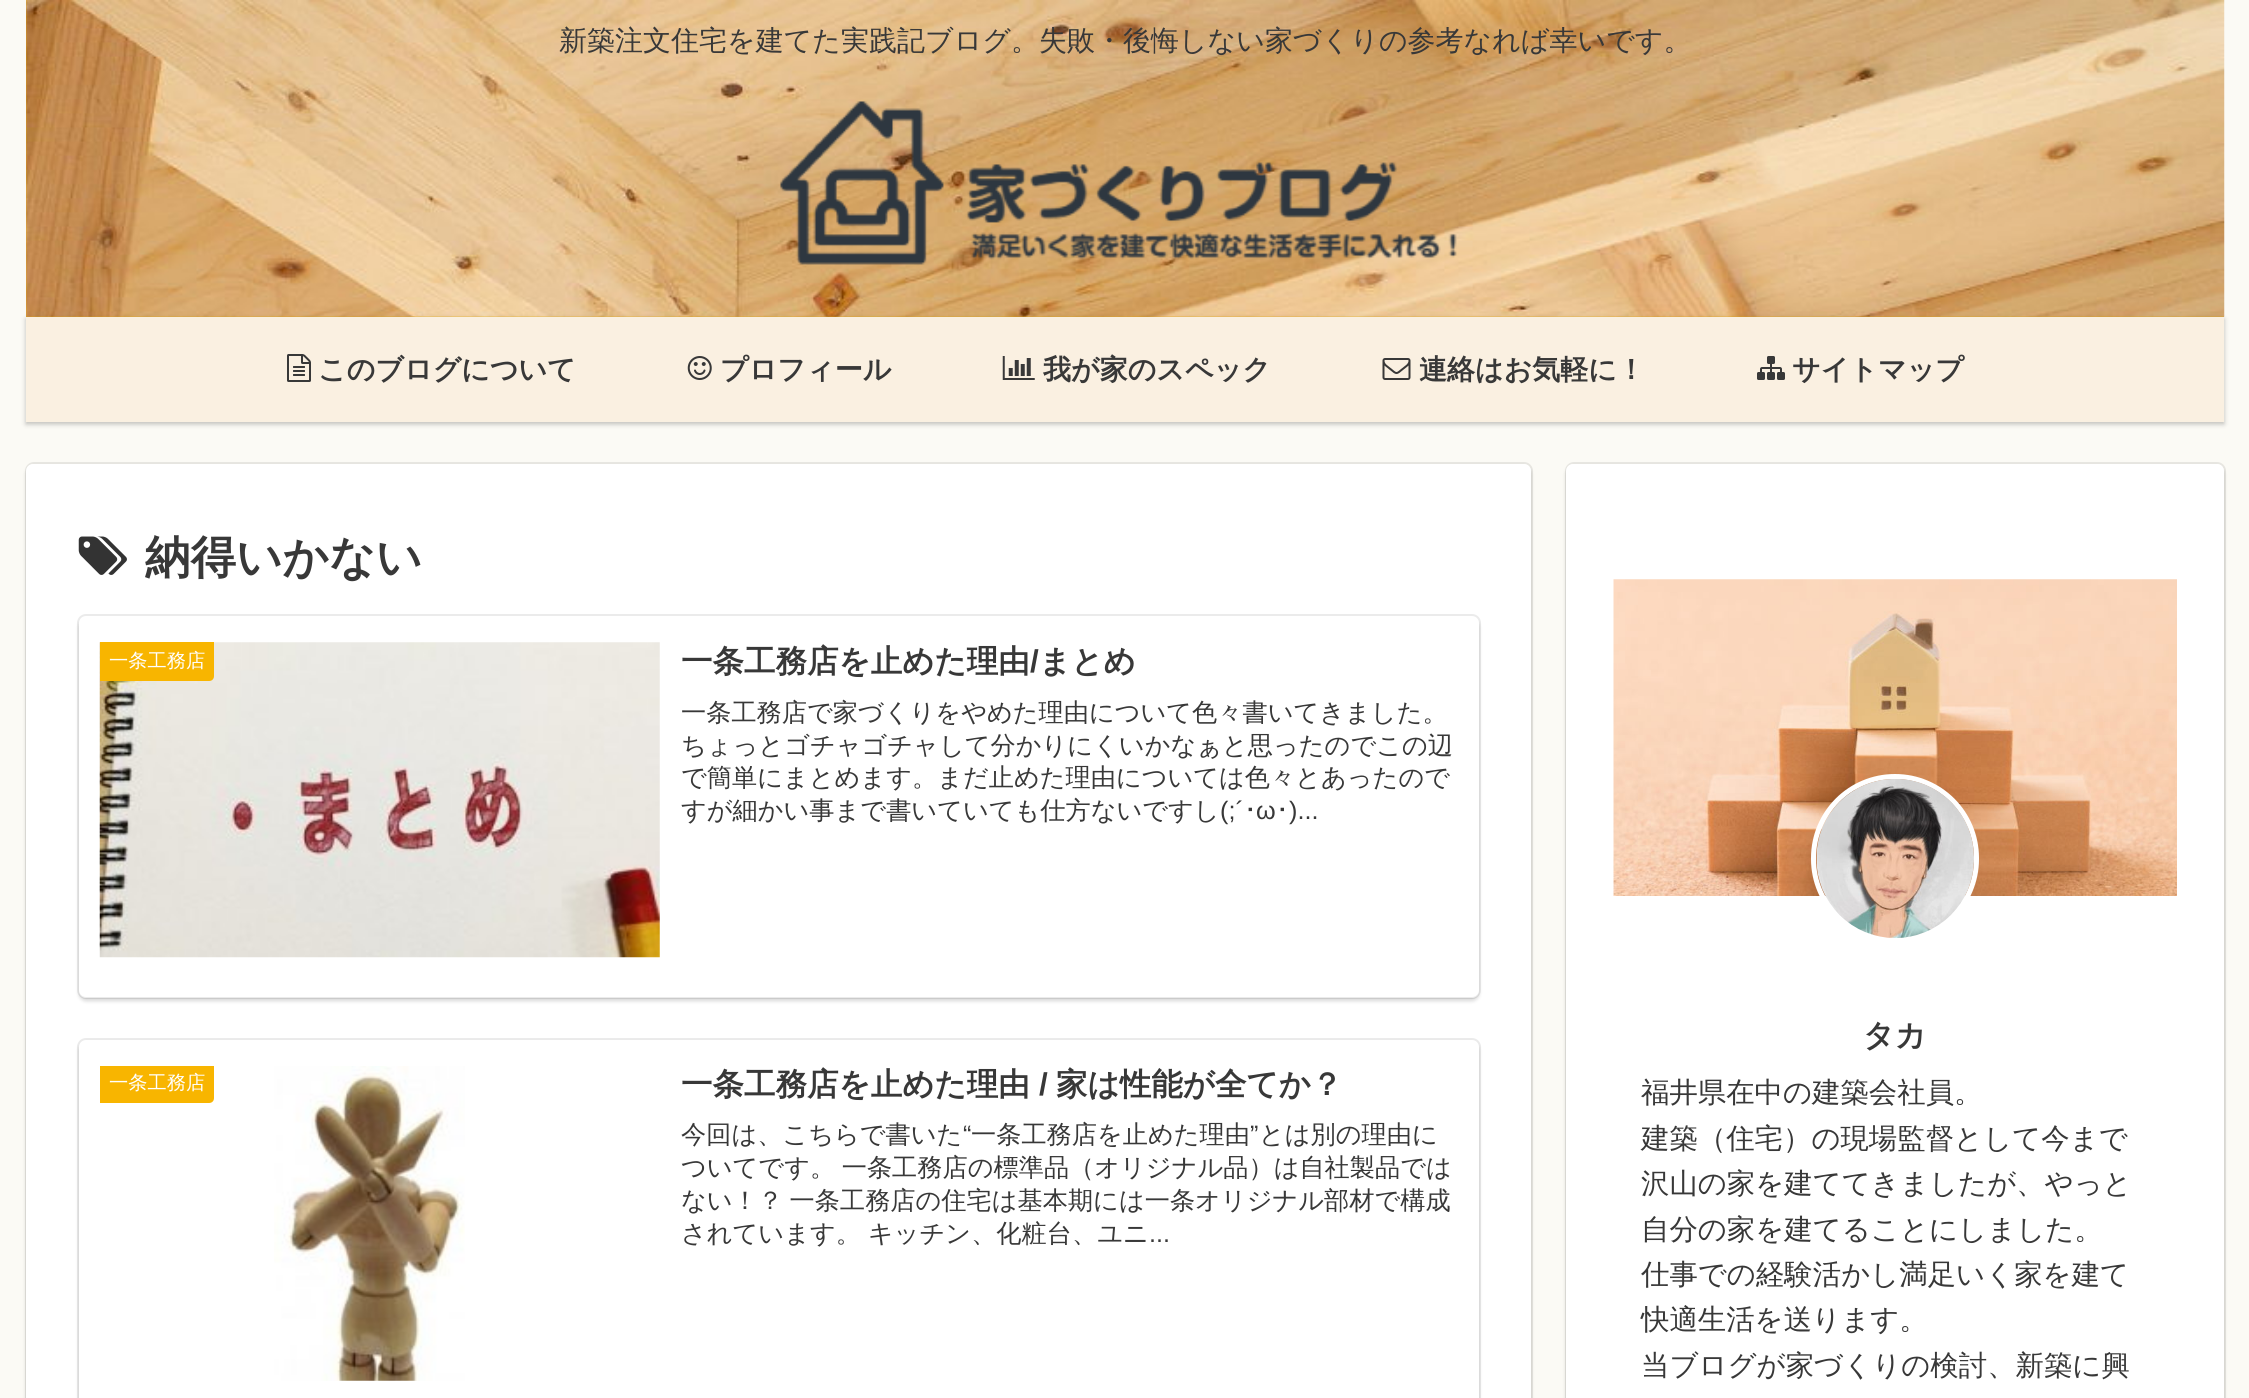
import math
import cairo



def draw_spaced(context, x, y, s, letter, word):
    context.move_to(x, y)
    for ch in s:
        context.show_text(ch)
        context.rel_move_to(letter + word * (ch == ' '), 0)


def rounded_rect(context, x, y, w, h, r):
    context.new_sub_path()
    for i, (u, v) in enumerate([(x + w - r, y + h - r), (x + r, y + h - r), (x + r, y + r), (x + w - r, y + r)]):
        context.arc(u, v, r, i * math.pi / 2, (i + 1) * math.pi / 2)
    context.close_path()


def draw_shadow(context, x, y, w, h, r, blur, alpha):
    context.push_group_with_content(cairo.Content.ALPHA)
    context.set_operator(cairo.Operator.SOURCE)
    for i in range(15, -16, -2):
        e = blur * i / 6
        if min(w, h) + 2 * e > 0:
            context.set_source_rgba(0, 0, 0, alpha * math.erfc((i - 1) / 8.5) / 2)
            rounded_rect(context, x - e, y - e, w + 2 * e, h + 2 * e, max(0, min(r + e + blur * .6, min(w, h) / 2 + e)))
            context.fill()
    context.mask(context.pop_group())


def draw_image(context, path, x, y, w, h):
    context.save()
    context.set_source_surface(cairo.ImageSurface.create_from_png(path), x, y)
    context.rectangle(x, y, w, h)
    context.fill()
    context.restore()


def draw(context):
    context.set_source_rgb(251 / 255, 250 / 255, 245 / 255)
    context.paint()
    context.set_source_rgb(248 / 255, 181 / 255, 0)
    context.rectangle(26, 0, 2198, 317)
    context.fill()
    draw_image(context, "images/1.png", 26, 0, 2199, 317)
    draw_image(context, "images/2.png", 780, 101, 677, 164)
    context.set_source_rgb(0, 0, 0)
    draw_shadow(context, 26, 319, 2198, 105, 0, 2.5, 0.25)
    context.set_source_rgb(250 / 255, 240 / 255, 225 / 255)
    context.rectangle(26, 317, 2198, 105)
    context.fill()
    draw_image(context, "images/3.png", 287, 354, 24, 28)
    draw_image(context, "images/4.png", 687, 356, 25, 24)
    draw_image(context, "images/5.png", 1002, 356, 33, 24)
    draw_image(context, "images/6.png", 1382, 358, 29, 22)
    draw_image(context, "images/7.png", 1757, 356, 28, 24)
    rounded_rect(context, 26, 463, 1506, 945, 8)
    context.set_source_rgb(231 / 255, 230 / 255, 225 / 255)
    context.stroke()
    context.set_source_rgb(0, 0, 0)
    draw_shadow(context, 26, 467, 1505, 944, 7, 2, 0.16)
    context.set_source_rgb(1, 1, 1)
    rounded_rect(context, 26, 464, 1505, 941, 7)
    context.fill()
    draw_image(context, "images/8.png", 78, 536, 49, 39)
    rounded_rect(context, 78, 615, 1402, 383, 8)
    context.set_source_rgb(235 / 255, 235 / 255, 235 / 255)
    context.stroke()
    context.save()
    context.set_fill_rule(cairo.FillRule.EVEN_ODD)
    context.new_path()
    context.move_to(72, 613)
    context.line_to(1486, 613)
    context.line_to(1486, 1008)
    context.line_to(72, 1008)
    context.close_path()
    context.move_to(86, 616)
    context.line_to(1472, 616)
    context.curve_to(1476, 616, 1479, 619, 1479, 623)
    context.line_to(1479, 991)
    context.curve_to(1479, 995, 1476, 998, 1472, 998)
    context.line_to(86, 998)
    context.curve_to(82, 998, 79, 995, 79, 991)
    context.line_to(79, 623)
    context.curve_to(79, 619, 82, 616, 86, 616)
    context.close_path()
    context.clip()
    context.set_source_rgb(0, 0, 0)
    draw_shadow(context, 79, 620, 1400, 381, 7, 2, 0.16)
    context.restore()
    draw_image(context, "images/9.png", 99, 642, 561, 316)
    context.set_source_rgb(248 / 255, 181 / 255, 0)
    context.new_path()
    context.move_to(100, 642)
    context.line_to(214, 642)
    context.line_to(214, 676)
    context.curve_to(214, 679, 212, 681, 209, 681)
    context.line_to(100, 681)
    context.close_path()
    context.fill()
    rounded_rect(context, 78, 1039, 1402, 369, 8)
    context.set_source_rgb(235 / 255, 235 / 255, 235 / 255)
    context.stroke()
    context.save()
    context.set_fill_rule(cairo.FillRule.EVEN_ODD)
    context.new_path()
    context.move_to(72, 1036)
    context.line_to(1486, 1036)
    context.line_to(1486, 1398)
    context.line_to(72, 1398)
    context.close_path()
    context.move_to(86, 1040)
    context.line_to(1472, 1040)
    context.curve_to(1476, 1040, 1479, 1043, 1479, 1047)
    context.line_to(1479, 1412)
    context.curve_to(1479, 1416, 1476, 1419, 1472, 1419)
    context.line_to(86, 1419)
    context.curve_to(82, 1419, 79, 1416, 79, 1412)
    context.line_to(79, 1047)
    context.curve_to(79, 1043, 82, 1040, 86, 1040)
    context.close_path()
    context.clip()
    context.set_source_rgb(0, 0, 0)
    draw_shadow(context, 79, 1043, 1400, 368, 7, 2, 0.16)
    context.restore()
    context.set_source_rgb(248 / 255, 181 / 255, 0)
    context.new_path()
    context.move_to(100, 1066)
    context.line_to(214, 1066)
    context.line_to(214, 1098)
    context.curve_to(214, 1101, 212, 1103, 209, 1103)
    context.line_to(100, 1103)
    context.close_path()
    context.fill()
    draw_image(context, "images/10.png", 274, 1066, 191, 315)
    rounded_rect(context, 1566, 463, 659, 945, 8)
    context.set_source_rgb(231 / 255, 230 / 255, 225 / 255)
    context.stroke()
    context.set_source_rgb(0, 0, 0)
    draw_shadow(context, 1566, 467, 658, 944, 7, 2, 0.16)
    context.set_source_rgb(1, 1, 1)
    rounded_rect(context, 1566, 464, 658, 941, 7)
    context.fill()
    draw_image(context, "images/11.png", 1613, 579, 564, 317)
    rounded_rect(context, 1813.5, 776.5, 163, 164, 81.5)
    context.set_line_width(5)
    context.stroke()
    draw_image(context, "images/12.png", 1816, 779, 158, 159)
    context.select_font_face("WenQuanYi Zen Hei Medium")
    context.set_font_size(28)
    context.set_source_rgb(56 / 255, 56 / 255, 56 / 255)
    context.move_to(559, 50)
    context.show_text("新築注文住宅を建てた実践記ブログ。失敗・後悔しない家づくりの参考なれば幸いです。")
    context.select_font_face("WenQuanYi Zen Hei", cairo.FontSlant.NORMAL, cairo.FontWeight.BOLD)
    context.move_to(318, 379)
    context.show_text("このブログについて")
    context.move_to(720, 379)
    context.show_text("プロフィール")
    context.move_to(1043, 379)
    context.show_text("我が家のスペック")
    context.move_to(1419, 379)
    context.show_text("連絡はお気軽に！")
    context.move_to(1792, 379)
    context.show_text("サイトマップ")
    context.set_font_size(45.5)
    context.move_to(145, 573)
    context.show_text("納得いかない")
    context.select_font_face("WenQuanYi Zen Hei Medium")
    context.set_font_size(19.25)
    context.set_source_rgb(1, 1, 1)
    context.move_to(109, 667)
    context.show_text("一条工務店")
    context.select_font_face("WenQuanYi Zen Hei", cairo.FontSlant.NORMAL, cairo.FontWeight.BOLD)
    context.set_font_size(31.5)
    context.set_source_rgb(56 / 255, 56 / 255, 56 / 255)
    context.move_to(681, 672)
    context.show_text("一条工務店を止めた理由")
    context.select_font_face("Liberation Sans", cairo.FontSlant.NORMAL, cairo.FontWeight.BOLD)
    context.move_to(1030, 672)
    context.show_text("/")
    context.select_font_face("WenQuanYi Zen Hei", cairo.FontSlant.NORMAL, cairo.FontWeight.BOLD)
    context.move_to(1039, 672)
    context.show_text("まとめ")
    context.select_font_face("WenQuanYi Zen Hei Medium")
    context.set_font_size(25.2)
    context.move_to(681, 721)
    context.show_text("一条工務店で家づくりをやめた理由について色々書いてきました。")
    context.move_to(681, 754)
    context.show_text("ちょっとゴチャゴチャして分かりにくいかなぁと思ったのでこの辺")
    context.move_to(681, 786)
    context.show_text("で簡単にまとめます。まだ止めた理由については色々とあったので")
    context.move_to(681, 819)
    context.show_text("すが細かい事まで書いていても仕方ないですし")
    context.select_font_face("Liberation Sans")
    context.move_to(1220, 819)
    context.show_text("(;´")
    context.select_font_face("IPAPGothic")
    context.move_to(1244, 819)
    context.show_text("･")
    context.select_font_face("Liberation Sans")
    context.move_to(1256, 819)
    context.show_text("ω")
    context.select_font_face("IPAPGothic")
    context.move_to(1276, 819)
    context.show_text("･")
    context.select_font_face("Liberation Sans")
    context.move_to(1289, 819)
    context.show_text(")...")
    context.select_font_face("WenQuanYi Zen Hei Medium")
    context.set_font_size(19.25)
    context.set_source_rgb(1, 1, 1)
    context.move_to(109, 1089)
    context.show_text("一条工務店")
    context.select_font_face("WenQuanYi Zen Hei", cairo.FontSlant.NORMAL, cairo.FontWeight.BOLD)
    context.set_font_size(31.5)
    context.set_source_rgb(56 / 255, 56 / 255, 56 / 255)
    context.move_to(681, 1095)
    context.show_text("一条工務店を止めた理由")
    context.select_font_face("Liberation Sans", cairo.FontSlant.NORMAL, cairo.FontWeight.BOLD)
    context.move_to(1039, 1095)
    context.show_text("/")
    context.select_font_face("WenQuanYi Zen Hei", cairo.FontSlant.NORMAL, cairo.FontWeight.BOLD)
    context.move_to(1056, 1095)
    context.show_text("家は性能が全てか？")
    context.select_font_face("WenQuanYi Zen Hei Medium")
    context.set_font_size(25.2)
    context.move_to(681, 1143)
    context.show_text("今回は、こちらで書いた")
    context.select_font_face("Liberation Sans")
    context.move_to(963, 1143)
    context.show_text("“")
    context.select_font_face("WenQuanYi Zen Hei Medium")
    context.move_to(971, 1143)
    context.show_text("一条工務店を止めた理由")
    context.select_font_face("Liberation Sans")
    context.move_to(1250, 1143)
    context.show_text("”")
    context.select_font_face("WenQuanYi Zen Hei Medium")
    context.move_to(1259, 1143)
    context.show_text("とは別の理由に")
    draw_spaced(context, 681, 1176, "ついてです。 一条工務店の標準品（オリジナル品）は自社製品では", 0, -1)
    draw_spaced(context, 681, 1209, "ない！？ 一条工務店の住宅は基本期には一条オリジナル部材で構成", 0, -1)
    context.move_to(681, 1242)
    context.show_text("されています。")
    context.move_to(868, 1242)
    context.show_text("キッチン、化粧台、ユニ")
    context.select_font_face("Liberation Sans")
    context.move_to(1149, 1242)
    context.show_text("...")
    context.select_font_face("WenQuanYi Zen Hei", cairo.FontSlant.NORMAL, cairo.FontWeight.BOLD)
    context.set_font_size(31)
    context.move_to(1863, 1046)
    context.show_text("タカ")
    context.select_font_face("WenQuanYi Zen Hei Medium")
    context.set_font_size(28.4)
    context.move_to(1641, 1102)
    context.show_text("福井県在中の建築会社員。")
    context.move_to(1641, 1148)
    context.show_text("建築（住宅）の現場監督として今まで")
    context.move_to(1641, 1193)
    context.show_text("沢山の家を建ててきましたが、やっと")
    context.move_to(1641, 1239)
    context.show_text("自分の家を建てることにしました。")
    context.move_to(1641, 1284)
    context.show_text("仕事での経験活かし満足いく家を建て")
    context.move_to(1641, 1329)
    context.show_text("快適生活を送ります。")
    context.move_to(1641, 1375)
    context.show_text("当ブログが家づくりの検討、新築に興")


surface = cairo.ImageSurface(cairo.Format.RGB24, 2249, 1398)
context = cairo.Context(surface)
options = cairo.FontOptions()
options.set_hint_metrics(cairo.HintMetrics.OFF)
options.set_hint_style(cairo.HintStyle.NONE)
context.set_font_options(options)
context.set_miter_limit(4)
draw(context)
surface.write_to_png("out.png")
